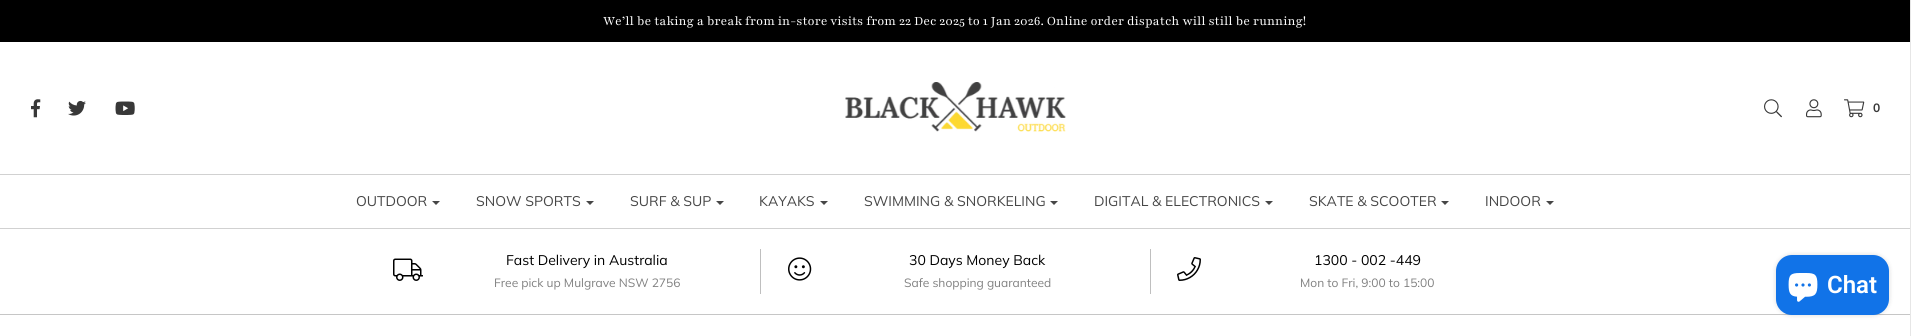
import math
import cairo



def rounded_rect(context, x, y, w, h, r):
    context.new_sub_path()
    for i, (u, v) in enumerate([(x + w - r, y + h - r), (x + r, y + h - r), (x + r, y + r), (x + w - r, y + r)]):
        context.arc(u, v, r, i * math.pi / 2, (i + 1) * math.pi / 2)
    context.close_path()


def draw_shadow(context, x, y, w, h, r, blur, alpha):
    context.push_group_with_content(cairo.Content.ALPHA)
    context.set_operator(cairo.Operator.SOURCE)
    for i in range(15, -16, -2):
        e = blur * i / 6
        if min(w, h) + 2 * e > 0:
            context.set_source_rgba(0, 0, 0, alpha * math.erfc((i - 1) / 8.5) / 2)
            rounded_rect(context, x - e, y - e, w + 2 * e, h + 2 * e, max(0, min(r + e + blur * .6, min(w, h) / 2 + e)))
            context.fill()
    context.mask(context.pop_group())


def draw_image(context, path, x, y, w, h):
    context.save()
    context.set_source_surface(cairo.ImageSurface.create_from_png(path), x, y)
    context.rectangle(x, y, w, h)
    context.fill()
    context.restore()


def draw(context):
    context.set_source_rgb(1, 1, 1)
    context.paint()
    context.set_source_rgb(230 / 255, 230 / 255, 230 / 255)
    context.rectangle(1910, 0, 1, 336)
    context.fill()
    context.set_source_rgb(0, 0, 0)
    context.rectangle(0, 0, 1910, 42)
    context.fill()
    draw_image(context, "images/1.png", 31, 99, 10, 19)
    draw_image(context, "images/2.png", 68, 100, 18, 16)
    draw_image(context, "images/3.png", 115, 101, 20, 14)
    draw_image(context, "images/4.png", 845, 82, 221, 50)
    draw_image(context, "images/5.png", 1764, 99, 18, 19)
    draw_image(context, "images/6.png", 1806, 99, 16, 19)
    draw_image(context, "images/7.png", 1844, 99, 21, 19)
    context.set_source_rgb(209 / 255, 209 / 255, 209 / 255)
    context.rectangle(0, 174, 1910, 1)
    context.fill()
    context.rectangle(0, 228, 1910, 1)
    context.fill()
    context.set_source_rgb(70 / 255, 70 / 255, 70 / 255)
    context.new_path()
    context.move_to(432, 201)
    context.line_to(440, 201)
    context.line_to(436, 205)
    context.close_path()
    context.fill()
    context.new_path()
    context.move_to(586, 201)
    context.line_to(594, 201)
    context.line_to(590, 205)
    context.close_path()
    context.fill()
    context.new_path()
    context.move_to(716, 201)
    context.line_to(724, 201)
    context.line_to(720, 205)
    context.close_path()
    context.fill()
    context.new_path()
    context.move_to(820, 201)
    context.line_to(828, 201)
    context.line_to(824, 205)
    context.close_path()
    context.fill()
    context.new_path()
    context.move_to(1050, 201)
    context.line_to(1058, 201)
    context.line_to(1054, 205)
    context.close_path()
    context.fill()
    context.new_path()
    context.move_to(1265, 201)
    context.line_to(1273, 201)
    context.line_to(1269, 205)
    context.close_path()
    context.fill()
    context.new_path()
    context.move_to(1441, 201)
    context.line_to(1449, 201)
    context.line_to(1445, 205)
    context.close_path()
    context.fill()
    context.new_path()
    context.move_to(1546, 201)
    context.line_to(1554, 201)
    context.line_to(1550, 205)
    context.close_path()
    context.fill()
    context.set_source_rgb(198 / 255, 198 / 255, 198 / 255)
    context.rectangle(0, 314, 1910, 1)
    context.fill()
    draw_image(context, "images/8.png", 393, 258, 30, 23)
    context.set_source_rgb(191 / 255, 191 / 255, 191 / 255)
    context.rectangle(760, 249, 1, 45)
    context.fill()
    draw_image(context, "images/9.png", 788, 257, 24, 24)
    context.rectangle(1150, 249, 1, 45)
    context.fill()
    draw_image(context, "images/10.png", 1177, 257, 24, 24)
    context.set_source_rgb(0, 0, 0)
    draw_shadow(context, 1776, 255, 113, 60, 16, 2.5, 0.15)
    context.set_source_rgb(17 / 255, 115 / 255, 232 / 255)
    rounded_rect(context, 1776, 255, 113, 60, 16)
    context.fill()
    draw_image(context, "images/11.png", 1788, 273, 30, 29)
    context.select_font_face("Playfair")
    context.set_font_size(14)
    context.set_source_rgb(1, 1, 1)
    context.move_to(603, 25)
    context.show_text("We’ll be taking a break from in-store visits from 22 Dec 2025 to 1 Jan 2026. Online order dispatch will still be running!")
    context.select_font_face("Muli", cairo.FontSlant.NORMAL, cairo.FontWeight.BOLD)
    context.set_font_size(12)
    context.set_source_rgb(56 / 255, 56 / 255, 56 / 255)
    context.move_to(1873, 112)
    context.show_text("0")
    context.select_font_face("Muli")
    context.set_font_size(14)
    context.set_source_rgb(70 / 255, 70 / 255, 70 / 255)
    context.move_to(356, 206)
    context.show_text("OUTDOOR")
    context.move_to(476, 206)
    context.show_text("SNOW SPORTS")
    context.move_to(630, 206)
    context.show_text("SURF & SUP")
    context.move_to(759, 206)
    context.show_text("KAYAKS")
    context.move_to(864, 206)
    context.show_text("SWIMMING & SNORKELING")
    context.move_to(1094, 206)
    context.show_text("DIGITAL & ELECTRONICS")
    context.move_to(1309, 206)
    context.show_text("SKATE & SCOOTER")
    context.move_to(1485, 206)
    context.show_text("INDOOR")
    context.set_source_rgb(0, 0, 0)
    context.move_to(506, 265)
    context.show_text("Fast Delivery in Australia")
    context.set_font_size(12)
    context.set_source_rgb(128 / 255, 128 / 255, 128 / 255)
    context.move_to(494, 287)
    context.show_text("Free pick up Mulgrave NSW 2756")
    context.set_font_size(14)
    context.set_source_rgb(0, 0, 0)
    context.move_to(909, 265)
    context.show_text("30 Days Money Back")
    context.set_font_size(12)
    context.set_source_rgb(128 / 255, 128 / 255, 128 / 255)
    context.move_to(904, 287)
    context.show_text("Safe shopping guaranteed")
    context.set_font_size(14)
    context.set_source_rgb(0, 0, 0)
    context.move_to(1314, 265)
    context.show_text("1300 - 002 -449")
    context.set_font_size(12)
    context.set_source_rgb(128 / 255, 128 / 255, 128 / 255)
    context.move_to(1300, 287)
    context.show_text("Mon to Fri, 9:00 to 15:00")
    context.select_font_face("Roboto SemiBold")
    context.set_font_size(24)
    context.set_source_rgb(1, 1, 1)
    context.move_to(1827, 293)
    context.show_text("Chat")


surface = cairo.ImageSurface(cairo.Format.RGB24, 1911, 336)
context = cairo.Context(surface)
options = cairo.FontOptions()
options.set_hint_metrics(cairo.HintMetrics.OFF)
options.set_hint_style(cairo.HintStyle.NONE)
context.set_font_options(options)
context.set_miter_limit(4)
draw(context)
surface.write_to_png("out.png")
